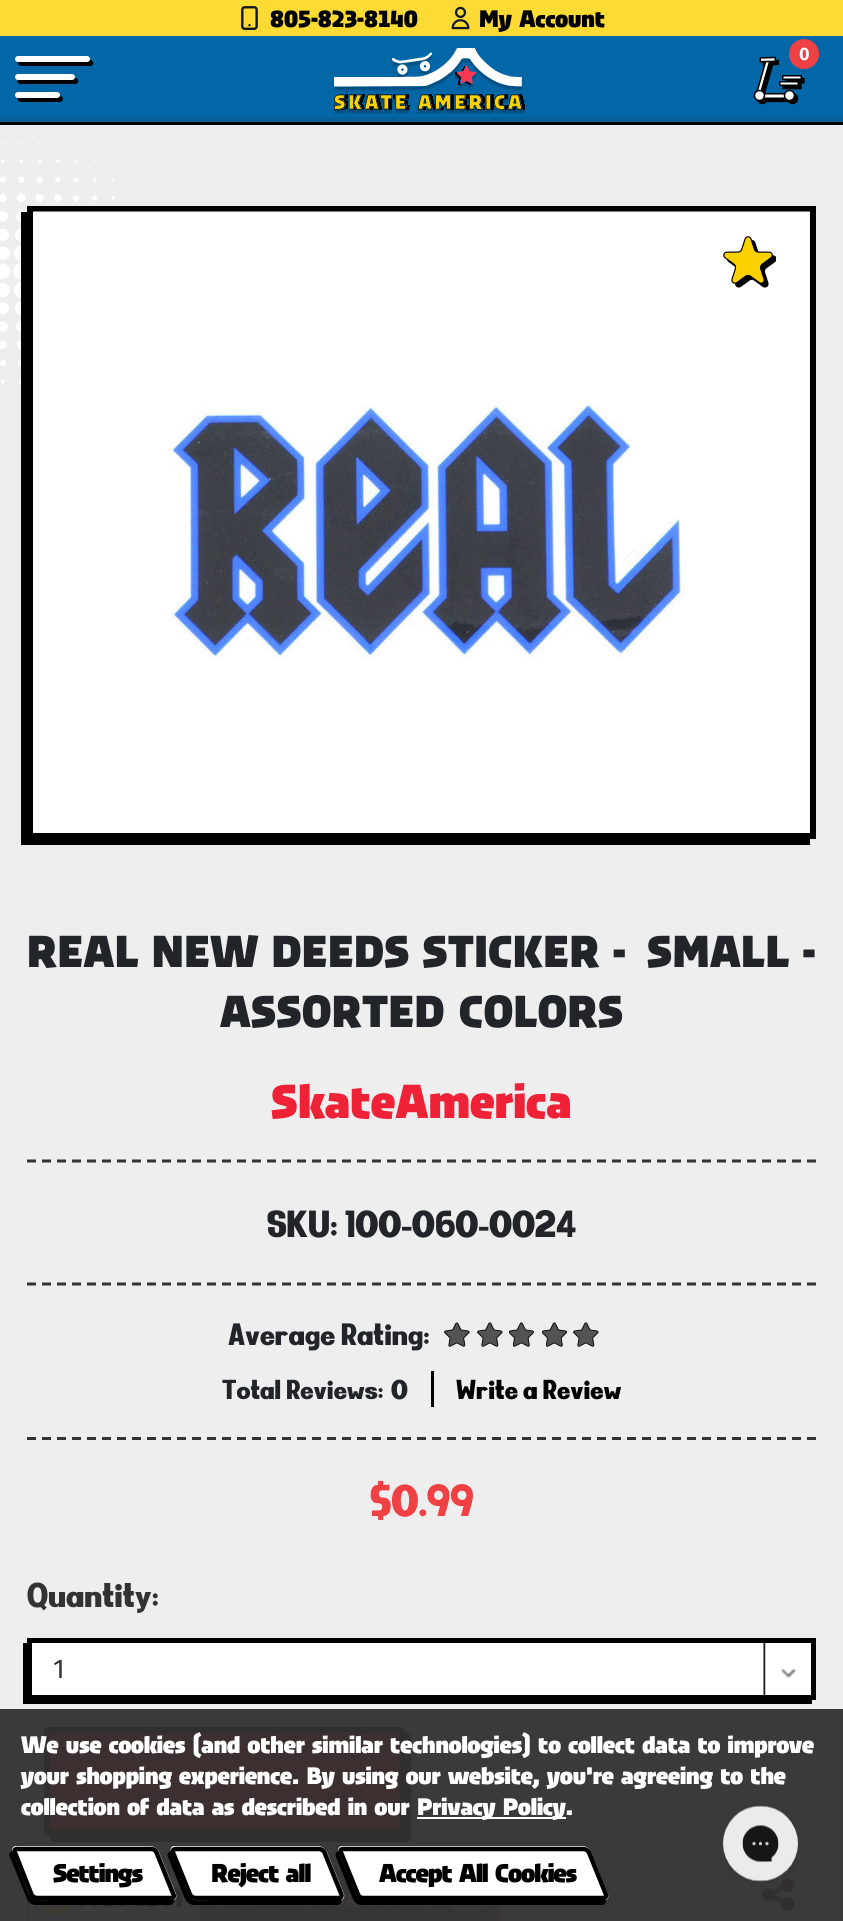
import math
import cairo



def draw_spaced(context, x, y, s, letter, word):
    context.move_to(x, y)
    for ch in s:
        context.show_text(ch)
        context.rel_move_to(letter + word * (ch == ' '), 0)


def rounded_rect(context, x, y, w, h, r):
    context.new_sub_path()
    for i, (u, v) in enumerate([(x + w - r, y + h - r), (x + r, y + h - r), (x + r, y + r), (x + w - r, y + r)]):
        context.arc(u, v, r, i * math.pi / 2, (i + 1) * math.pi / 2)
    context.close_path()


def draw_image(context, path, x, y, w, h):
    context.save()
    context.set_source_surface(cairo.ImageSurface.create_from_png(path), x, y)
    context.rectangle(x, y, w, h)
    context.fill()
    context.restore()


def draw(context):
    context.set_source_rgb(238 / 255, 238 / 255, 238 / 255)
    context.paint()
    context.set_source_rgb(59 / 255, 58 / 255, 58 / 255)
    context.rectangle(0, 1709, 843, 212)
    context.fill()
    context.set_source_rgb(253 / 255, 219 / 255, 52 / 255)
    context.rectangle(0, 0, 843, 36)
    context.fill()
    draw_image(context, "images/1.png", 241, 6, 17, 24)
    draw_image(context, "images/2.png", 451, 6, 19, 24)
    context.set_source_rgb(8 / 255, 94 / 255, 150 / 255)
    context.rectangle(0, 117, 843, 5)
    context.fill()
    context.set_source_rgb(0, 0, 0)
    context.rectangle(0, 122, 843, 3)
    context.fill()
    context.set_source_rgb(3 / 255, 102 / 255, 166 / 255)
    context.rectangle(0, 36, 843, 81)
    context.fill()
    context.set_source_rgb(0, 0, 0)
    context.new_path()
    context.move_to(18, 62)
    context.curve_to(17, 63, 19, 66, 21, 66)
    context.line_to(91, 66)
    context.curve_to(95, 64, 93, 60, 90, 60)
    context.line_to(87, 61)
    context.close_path()
    context.fill()
    context.set_source_rgb(1, 1, 1)
    rounded_rect(context, 15, 56, 75, 6, 3)
    context.fill()
    context.set_source_rgb(0, 0, 0)
    context.new_path()
    context.move_to(18, 80)
    context.curve_to(15, 85, 24, 84, 30, 84)
    context.line_to(76, 84)
    context.curve_to(80, 82, 78, 78, 75, 78)
    context.line_to(73, 79)
    context.close_path()
    context.fill()
    context.set_source_rgb(1, 1, 1)
    rounded_rect(context, 15, 74, 60, 6, 3)
    context.fill()
    context.set_source_rgb(0, 0, 0)
    context.new_path()
    context.move_to(18, 98)
    context.curve_to(15, 103, 26, 102, 28, 102)
    context.line_to(60, 102)
    context.curve_to(64, 102, 64, 96, 60, 96)
    context.line_to(58, 97)
    context.close_path()
    context.fill()
    context.set_source_rgb(1, 1, 1)
    rounded_rect(context, 15, 92, 45, 6, 3)
    context.fill()
    draw_image(context, "images/3.png", 333, 48, 192, 66)
    draw_image(context, "images/4.png", 753, 56, 52, 49)
    context.set_source_rgb(239 / 255, 64 / 255, 68 / 255)
    context.arc(804, 54, 15, 0, 2 * math.pi)
    context.fill()
    draw_image(context, "images/5.png", 0, 142, 132, 259)
    context.set_source_rgb(0, 0, 0)
    context.new_path()
    context.move_to(21, 212)
    context.line_to(21, 845)
    context.line_to(810, 845)
    context.line_to(810, 838)
    context.line_to(27, 838)
    context.line_to(27, 212)
    context.close_path()
    context.fill()
    context.set_source_rgb(1, 1, 1)
    context.rectangle(33, 659, 777, 174)
    context.fill()
    context.rectangle(30, 209, 783, 627)
    context.set_source_rgb(0, 0, 0)
    context.set_line_width(6)
    context.stroke()
    draw_image(context, "images/6.png", 33, 211, 777, 448)
    draw_image(context, "images/7.png", 723, 236, 53, 52)
    context.new_path()
    context.move_to(27, 1161)
    context.line_to(816, 1161)
    context.set_source_rgb(51 / 255, 51 / 255, 51 / 255)
    context.set_line_width(3)
    context.set_dash([9, 6])
    context.stroke()
    context.new_path()
    context.move_to(27, 1284)
    context.line_to(816, 1284)
    context.stroke()
    context.new_path()
    context.move_to(27, 1438.5)
    context.line_to(816, 1438.5)
    context.stroke()
    draw_image(context, "images/8.png", 444, 1322, 26, 25)
    draw_image(context, "images/8.png", 477, 1322, 26, 25)
    draw_image(context, "images/9.png", 509, 1322, 25, 25)
    draw_image(context, "images/9.png", 542, 1322, 25, 25)
    draw_image(context, "images/8.png", 573, 1322, 26, 25)
    context.set_source_rgb(0, 0, 0)
    context.rectangle(431, 1371, 3, 36)
    context.fill()
    context.new_path()
    context.move_to(23, 1643)
    context.line_to(23, 1704)
    context.line_to(812, 1704)
    context.line_to(812, 1700)
    context.line_to(27, 1700)
    context.line_to(27, 1643)
    context.close_path()
    context.fill()
    context.set_source_rgb(1, 1, 1)
    context.rectangle(32, 1643, 779, 52)
    context.fill()
    draw_image(context, "images/10.png", 763, 1643, 34, 52)
    context.rectangle(29.5, 1640.5, 784, 57)
    context.set_source_rgb(0, 0, 0)
    context.set_line_width(5)
    context.set_dash([])
    context.stroke()
    context.set_source_rgb(48 / 255, 46 / 255, 46 / 255)
    context.new_path()
    context.move_to(50, 1836)
    context.line_to(50, 1837)
    context.curve_to(50, 1840, 52, 1842, 55, 1842)
    context.line_to(406, 1842)
    context.curve_to(409, 1842, 411, 1840, 411, 1837)
    context.line_to(411, 1738)
    context.curve_to(411, 1735, 409, 1733, 406, 1733)
    context.line_to(405, 1733)
    context.line_to(405, 1832)
    context.curve_to(405, 1834, 403, 1836, 400, 1836)
    context.close_path()
    context.fill()
    context.set_source_rgb(60 / 255, 47 / 255, 48 / 255)
    rounded_rect(context, 47, 1730, 355, 103, 2)
    context.fill_preserve()
    context.set_source_rgb(48 / 255, 46 / 255, 46 / 255)
    context.set_line_width(6)
    context.stroke()
    draw_image(context, "images/11.png", 27, 1867, 474, 54)
    draw_image(context, "images/12.png", 762, 1878, 33, 33)
    context.set_source_rgb(1, 1, 1)
    context.rectangle(417, 1817, 149, 2)
    context.fill()
    context.set_source_rgb(0, 0, 0)
    context.new_path()
    context.move_to(12, 1851)
    context.curve_to(10, 1852, 8, 1854, 10, 1857)
    context.line_to(27, 1899)
    context.curve_to(28, 1902, 32, 1905, 35, 1905)
    context.line_to(170, 1905)
    context.curve_to(173, 1905, 174, 1903, 174, 1900)
    context.line_to(60, 1900)
    context.curve_to(30, 1900, 34, 1905, 24, 1880)
    context.close_path()
    context.fill()
    context.set_source_rgb(1, 1, 1)
    context.new_path()
    context.move_to(16, 1846)
    context.line_to(150, 1846)
    context.curve_to(154, 1846, 158, 1849, 159, 1852)
    context.line_to(176, 1894)
    context.curve_to(177, 1898, 176, 1900, 172, 1900)
    context.line_to(38, 1900)
    context.curve_to(35, 1900, 31, 1898, 29, 1894)
    context.line_to(13, 1852)
    context.curve_to(11, 1849, 13, 1846, 16, 1846)
    context.close_path()
    context.fill()
    context.new_path()
    context.move_to(17, 1849)
    context.line_to(151.5, 1849)
    context.curve_to(153.5, 1849, 156, 1850.5, 156.5, 1852.5)
    context.line_to(173.5, 1894.5)
    context.curve_to(174.5, 1896.5, 173.5, 1898, 171.5, 1898)
    context.line_to(37, 1898)
    context.curve_to(35, 1898, 32.5, 1896.5, 31.5, 1894.5)
    context.line_to(15, 1852.5)
    context.curve_to(14, 1850.5, 15, 1849, 17, 1849)
    context.close_path()
    context.set_source_rgb(0, 0, 0)
    context.set_line_width(4.5)
    context.stroke()
    context.new_path()
    context.move_to(171, 1851)
    context.curve_to(168, 1852, 167, 1854, 168, 1857)
    context.line_to(185, 1899)
    context.curve_to(187, 1902, 190, 1905, 194, 1905)
    context.line_to(337, 1905)
    context.curve_to(340, 1905, 342, 1903, 341, 1900)
    context.line_to(220, 1900)
    context.curve_to(189, 1900, 192, 1906, 182, 1880)
    context.close_path()
    context.fill()
    context.set_source_rgb(1, 1, 1)
    context.new_path()
    context.move_to(174, 1846)
    context.line_to(318, 1846)
    context.curve_to(322, 1846, 325, 1849, 327, 1852)
    context.line_to(344, 1894)
    context.curve_to(345, 1898, 343, 1900, 340, 1900)
    context.line_to(196, 1900)
    context.curve_to(193, 1900, 189, 1898, 188, 1894)
    context.line_to(171, 1852)
    context.curve_to(170, 1849, 171, 1846, 174, 1846)
    context.close_path()
    context.fill()
    context.new_path()
    context.move_to(175.5, 1849)
    context.line_to(319, 1849)
    context.curve_to(321, 1849, 323.5, 1850.5, 324.5, 1852.5)
    context.line_to(341.5, 1894.5)
    context.curve_to(342, 1896.5, 341, 1898, 339, 1898)
    context.line_to(195.5, 1898)
    context.curve_to(193.5, 1898, 191, 1896.5, 190, 1894.5)
    context.line_to(173, 1852.5)
    context.curve_to(172.5, 1850.5, 173.5, 1849, 175.5, 1849)
    context.close_path()
    context.set_source_rgb(0, 0, 0)
    context.stroke()
    context.new_path()
    context.move_to(338, 1851)
    context.curve_to(336, 1852, 335, 1854, 336, 1857)
    context.line_to(353, 1899)
    context.curve_to(354, 1902, 358, 1905, 361, 1905)
    context.line_to(602, 1905)
    context.curve_to(605, 1905, 606, 1903, 606, 1900)
    context.line_to(364, 1900)
    context.curve_to(357, 1900, 355, 1893, 353, 1888)
    context.close_path()
    context.fill()
    context.set_source_rgb(1, 1, 1)
    context.new_path()
    context.move_to(342, 1846)
    context.line_to(583, 1846)
    context.curve_to(586, 1846, 590, 1849, 591, 1852)
    context.line_to(608, 1894)
    context.curve_to(609, 1898, 608, 1900, 604, 1900)
    context.line_to(364, 1900)
    context.curve_to(361, 1900, 357, 1898, 356, 1894)
    context.line_to(339, 1852)
    context.curve_to(337, 1849, 339, 1846, 342, 1846)
    context.close_path()
    context.fill()
    context.new_path()
    context.move_to(343, 1849)
    context.line_to(583.5, 1849)
    context.curve_to(585.5, 1849, 588, 1850.5, 589, 1852.5)
    context.line_to(606, 1894.5)
    context.curve_to(606.5, 1896.5, 605.5, 1898, 603.5, 1898)
    context.line_to(363, 1898)
    context.curve_to(361, 1898, 358.5, 1896.5, 358, 1894.5)
    context.line_to(341, 1852.5)
    context.curve_to(340, 1850.5, 341, 1849, 343, 1849)
    context.close_path()
    context.set_source_rgb(0, 0, 0)
    context.stroke()
    draw_image(context, "images/13.png", 723, 1805, 75, 78)
    context.select_font_face("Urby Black")
    context.set_font_size(24)
    context.move_to(270, 27)
    context.show_text("805-823-8140")
    context.move_to(479, 27)
    context.show_text("My Account")
    context.select_font_face("Fira Sans", cairo.FontSlant.NORMAL, cairo.FontWeight.BOLD)
    context.set_font_size(18)
    context.set_source_rgb(1, 1, 1)
    context.move_to(799, 60)
    context.show_text("0")
    context.select_font_face("Urby Black")
    context.set_font_size(45)
    context.set_source_rgb(33 / 255, 37 / 255, 41 / 255)
    draw_spaced(context, 27, 967, "REAL NEW DEEDS STICKER -", 0.4, -1.5)
    draw_spaced(context, 647, 967, "SMALL -", 0.4, -1.5)
    draw_spaced(context, 220, 1027, "ASSORTED COLORS", 0.4, 0)
    context.set_font_size(48)
    context.set_source_rgb(238 / 255, 33 / 255, 55 / 255)
    draw_spaced(context, 271, 1118, "SkateAmerica", 0.4, 0)
    context.select_font_face("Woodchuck", cairo.FontSlant.NORMAL, cairo.FontWeight.BOLD)
    context.set_font_size(33)
    context.set_source_rgb(33 / 255, 37 / 255, 41 / 255)
    context.move_to(267, 1237)
    context.show_text("SKU: 100-060-0024")
    context.set_font_size(27)
    context.move_to(228, 1345)
    context.show_text("Average Rating:")
    context.set_font_size(24)
    context.move_to(222, 1399)
    context.show_text("Total Reviews:")
    context.move_to(391, 1399)
    context.show_text("0")
    context.set_source_rgb(0, 0, 0)
    context.move_to(456, 1399)
    context.show_text("Write a Review")
    context.set_font_size(39)
    context.set_source_rgb(239 / 255, 64 / 255, 68 / 255)
    context.move_to(370, 1516)
    context.show_text("$0.99")
    context.set_font_size(30)
    context.set_source_rgb(51 / 255, 51 / 255, 51 / 255)
    context.move_to(27, 1607)
    context.show_text("Quantity:")
    context.select_font_face("Fira Sans")
    context.set_font_size(27)
    context.move_to(53, 1678)
    context.show_text("1")
    context.select_font_face("Urby Black")
    context.set_font_size(24)
    context.set_source_rgb(1, 1, 1)
    draw_spaced(context, 21, 1753, "We use cookies (and other similar technologies) to collect data to improve", -0.08, 0)
    draw_spaced(context, 21, 1784, "your shopping experience. By using our website, you're agreeing to the", -0.08, 0)
    draw_spaced(context, 21, 1815, "collection of data as described in our", -0.08, 0)
    draw_spaced(context, 417, 1815, "Privacy Policy.", -0.08, 0)
    context.set_font_size(26)
    context.set_source_rgb(0, 0, 0)
    draw_spaced(context, 53, 1882, "Settings", -1, 0)
    draw_spaced(context, 211, 1882, "Reject all", -0.75, 0)
    draw_spaced(context, 379, 1882, "Accept All Cookies", -0.8, 0)


surface = cairo.ImageSurface(cairo.Format.RGB24, 843, 1921)
context = cairo.Context(surface)
options = cairo.FontOptions()
options.set_hint_metrics(cairo.HintMetrics.OFF)
options.set_hint_style(cairo.HintStyle.NONE)
context.set_font_options(options)
context.set_miter_limit(4)
draw(context)
surface.write_to_png("out.png")
